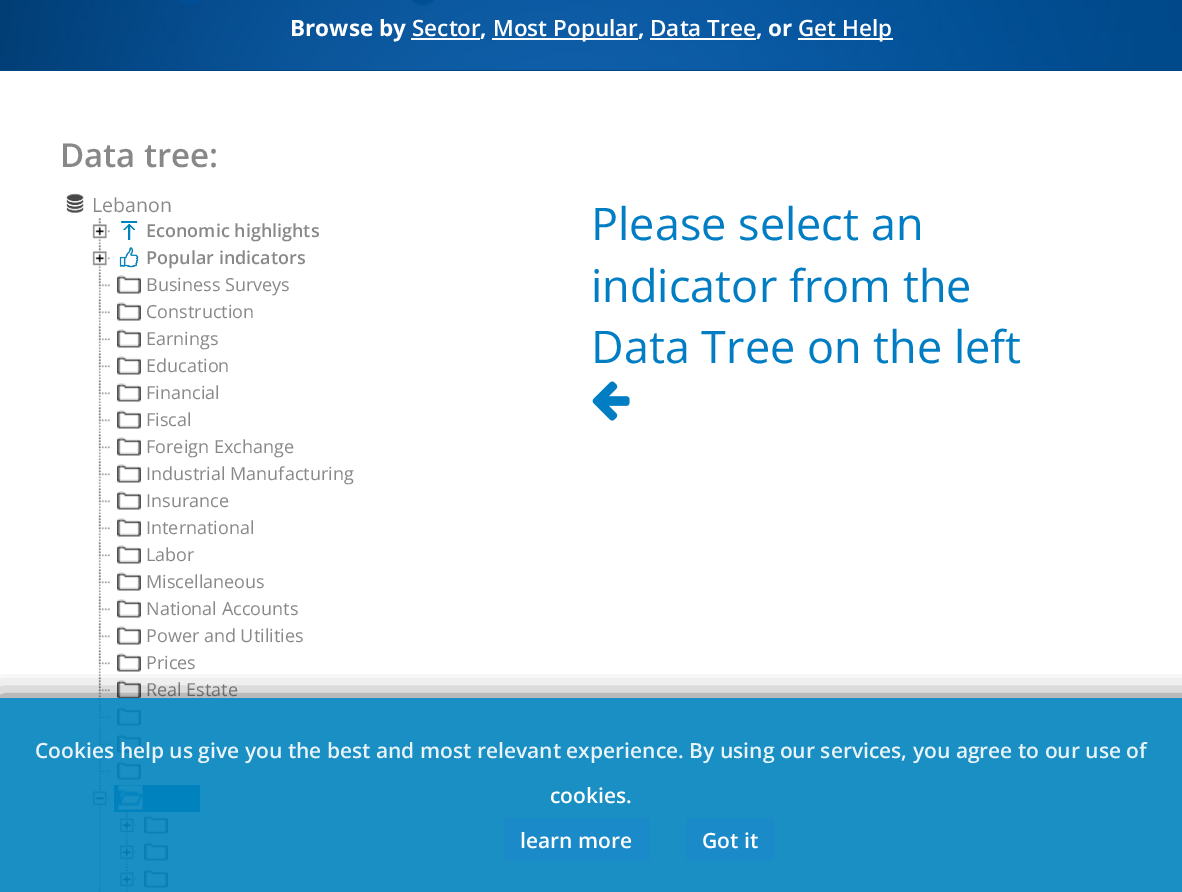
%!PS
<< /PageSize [1182 892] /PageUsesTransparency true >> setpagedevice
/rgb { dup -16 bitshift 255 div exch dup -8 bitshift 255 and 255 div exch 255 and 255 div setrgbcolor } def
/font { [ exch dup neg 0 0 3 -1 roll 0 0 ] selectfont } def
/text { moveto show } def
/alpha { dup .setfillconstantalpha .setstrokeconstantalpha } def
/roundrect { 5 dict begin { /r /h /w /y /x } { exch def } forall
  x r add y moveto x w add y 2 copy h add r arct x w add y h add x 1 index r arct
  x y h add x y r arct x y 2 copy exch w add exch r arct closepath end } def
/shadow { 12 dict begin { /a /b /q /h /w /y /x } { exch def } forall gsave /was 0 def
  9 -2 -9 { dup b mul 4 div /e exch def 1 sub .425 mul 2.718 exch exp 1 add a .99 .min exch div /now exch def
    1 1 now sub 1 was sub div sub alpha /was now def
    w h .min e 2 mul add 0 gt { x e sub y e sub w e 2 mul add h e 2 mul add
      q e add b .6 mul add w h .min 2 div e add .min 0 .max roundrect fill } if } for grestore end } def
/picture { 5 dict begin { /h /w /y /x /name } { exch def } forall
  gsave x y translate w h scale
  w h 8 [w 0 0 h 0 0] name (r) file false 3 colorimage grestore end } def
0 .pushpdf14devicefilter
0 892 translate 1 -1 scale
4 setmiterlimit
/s1 { /OpenSans-Bold 22.5 font 16#FFFFFF rgb } def
/s2 { /OpenSans-SemiBold 22.5 font 16#FFFFFF rgb } def
/s3 { /OpenSans-SemiBold 33 font 16#888888 rgb } def
/s4 { /OpenSans-Regular 19.5 font 16#888888 rgb } def
/s5 { /OpenSans-SemiBold 18 font 16#888888 rgb } def
/s6 { /OpenSans-Regular 18 font 16#888888 rgb } def
/s7 { /OpenSans-Regular 45 font 16#017DC3 rgb } def
/s8 { /OpenSans-SemiBold 21 font 16#E8F4F9 rgb } def
/s9 { /OpenSans-SemiBold 21 font 16#FFFFFF rgb } def
16#FFFFFF rgb
0 0 1182 892 rectfill
16#004481 rgb
0 70 1182 1 rectfill
(pic1.raw) 0 0 1182 70 picture
(pic2.raw) 178 0 256 6 picture
s1
(Browse by) 290 36 text
s2
(Sector) 412 36 text
411 38 69 2 rectfill
s1
(,) 480 36 text
492 38 146 2 rectfill
s2
(Most Popular) 493 36 text
s1
(,) 638 36 text
s2
(Data Tree) 650 36 text
650 38 106 2 rectfill
s1
(, or) 756 36 text
798 38 95 2 rectfill
s2
(Get Help) 798 36 text
s3
(Data tree:) 60 167 text
(pic3.raw) 66 193 18 20 picture
s4
(Lebanon) 92 212 text
(pic4.raw) 98 218 3 26 picture
(pic5.raw) 92 218 18 21 picture
(pic6.raw) 121 221 17 19 picture
s5
(Economic highlights) 146 237 text
(pic4.raw) 98 245 3 26 picture
(pic5.raw) 92 245 18 21 picture
(pic7.raw) 119 247 20 21 picture
(Popular indicators) 146 264 text
(pic4.raw) 98 272 3 26 picture
(pic8.raw) 98 272 12 15 picture
(pic9.raw) 117 275 24 19 picture
s6
(Business Surveys) 146 291 text
(pic4.raw) 98 299 3 26 picture
(pic8.raw) 98 299 12 15 picture
(pic9.raw) 117 302 24 19 picture
(Construction) 146 318 text
(pic4.raw) 98 326 3 26 picture
(pic8.raw) 98 326 12 15 picture
(pic9.raw) 117 329 24 19 picture
(Earnings) 146 345 text
(pic4.raw) 98 353 3 26 picture
(pic8.raw) 98 353 12 15 picture
(pic9.raw) 117 356 24 19 picture
(Education) 146 372 text
(pic4.raw) 98 380 3 26 picture
(pic8.raw) 98 380 12 15 picture
(pic9.raw) 117 383 24 19 picture
(Financial) 146 399 text
(pic4.raw) 98 407 3 26 picture
(pic8.raw) 98 407 12 15 picture
(pic9.raw) 117 410 24 19 picture
(Fiscal) 146 426 text
(pic4.raw) 98 434 3 26 picture
(pic8.raw) 98 434 12 15 picture
(pic9.raw) 117 437 24 19 picture
(Foreign Exchange) 146 453 text
(pic4.raw) 98 461 3 26 picture
(pic8.raw) 98 461 12 15 picture
(pic9.raw) 117 464 24 19 picture
(Industrial Manufacturing) 146 480 text
(pic4.raw) 98 488 3 26 picture
(pic8.raw) 98 488 12 15 picture
(pic9.raw) 117 491 24 19 picture
(Insurance) 146 507 text
(pic4.raw) 98 515 3 26 picture
(pic8.raw) 98 515 12 15 picture
(pic9.raw) 117 518 24 19 picture
(International) 146 534 text
(pic4.raw) 98 542 3 26 picture
(pic8.raw) 98 542 12 15 picture
(pic9.raw) 117 545 24 19 picture
(Labor) 146 561 text
(pic4.raw) 98 569 3 26 picture
(pic8.raw) 98 569 12 15 picture
(pic9.raw) 117 572 24 19 picture
(Miscellaneous) 146 588 text
(pic4.raw) 98 596 3 26 picture
(pic8.raw) 98 596 12 15 picture
(pic9.raw) 117 599 24 19 picture
(National Accounts) 146 615 text
(pic4.raw) 98 623 3 26 picture
(pic8.raw) 98 623 12 15 picture
(pic9.raw) 117 626 24 19 picture
(Power and Utilities) 146 642 text
(pic4.raw) 98 650 3 26 picture
(pic8.raw) 98 650 12 15 picture
(pic9.raw) 117 653 24 19 picture
(Prices) 146 669 text
(pic4.raw) 98 677 3 26 picture
(pic8.raw) 98 677 12 15 picture
(pic9.raw) 117 680 24 19 picture
(Real Estate) 146 696 text
(pic4.raw) 98 704 3 26 picture
(pic8.raw) 98 704 12 15 picture
(pic9.raw) 117 707 24 19 picture
(pic4.raw) 98 731 3 26 picture
(pic8.raw) 98 731 12 15 picture
(pic9.raw) 117 734 24 19 picture
(pic4.raw) 98 758 3 26 picture
(pic8.raw) 98 758 12 15 picture
(pic9.raw) 117 761 24 19 picture
(pic10.raw) 98 784 3 108 picture
(pic11.raw) 92 785 18 21 picture
16#017DC3 rgb
114 785 86 27 rectfill
(pic12.raw) 118 785 25 25 picture
(pic4.raw) 125 812 3 26 picture
(pic5.raw) 119 812 18 21 picture
(pic9.raw) 144 815 24 19 picture
(pic4.raw) 125 839 3 26 picture
(pic5.raw) 119 839 18 21 picture
(pic9.raw) 144 842 24 19 picture
(pic4.raw) 125 866 3 26 picture
(pic5.raw) 119 866 18 21 picture
(pic9.raw) 144 869 24 19 picture
s7
(Please select an) 591 240 text
(indicator from the) 591 302 text
(Data Tree on the left) 591 363 text
(pic13.raw) 592 381 38 40 picture
gsave
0 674 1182 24 rectclip
16#000000 rgb
0 704 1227 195 0 15 0.9 shadow
grestore
0.9 alpha
16#0083BD rgb
0 698 1182 194 rectfill
1 alpha
s8
(Cookies help us give you the best and most relevant experience. By using our services, you agree to our use of) 35 758 text
s9
(cookies.) 550 803 text
16#1A8AC9 rgb
504 818 146 43 rectfill
s9
(learn more) 520 848 text
16#1A8AC9 rgb
686 818 88 43 rectfill
s9
(Got it) 702 848 text
.poppdf14devicefilter showpage
